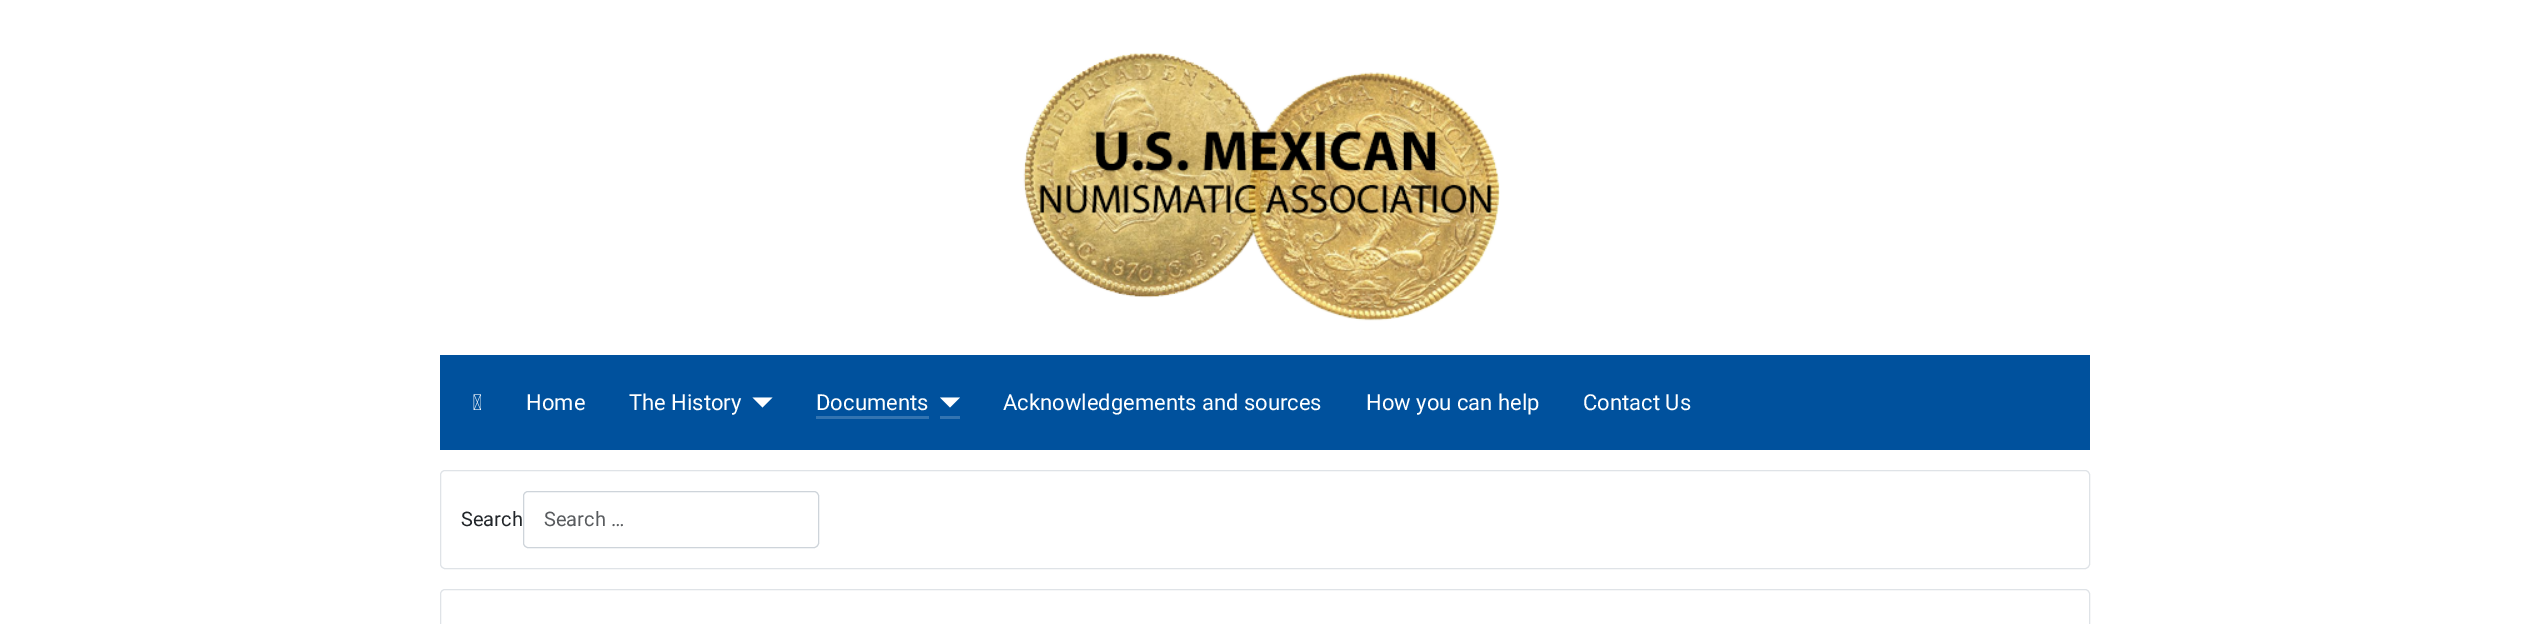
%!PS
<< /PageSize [2530 624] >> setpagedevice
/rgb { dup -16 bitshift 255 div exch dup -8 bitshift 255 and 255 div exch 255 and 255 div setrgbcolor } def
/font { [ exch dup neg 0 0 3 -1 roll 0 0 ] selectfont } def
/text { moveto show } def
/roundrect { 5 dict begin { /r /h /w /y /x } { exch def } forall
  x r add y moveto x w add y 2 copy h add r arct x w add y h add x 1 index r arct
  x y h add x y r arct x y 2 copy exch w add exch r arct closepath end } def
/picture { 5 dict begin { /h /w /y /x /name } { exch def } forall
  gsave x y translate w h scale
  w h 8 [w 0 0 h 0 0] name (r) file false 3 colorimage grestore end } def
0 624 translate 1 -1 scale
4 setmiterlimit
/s1 { /Roboto-Regular 22 font 16#FFFFFF rgb } def
/s2 { /Roboto-Regular 20 font 16#22262A rgb } def
/s3 { /Roboto-Regular 20 font 16#595C5F rgb } def
16#FFFFFF rgb
0 0 2530 624 rectfill
(pic1.raw) 1023 52 477 269 picture
16#00519D rgb
440 355 1650 95 rectfill
(pic2.raw) 473 394 8 16 picture
s1
(Home) 526 410 text
(The History) 629 410 text
752.5 397.5 moveto 772.5 397.5 lineto 762.5 407.5 lineto closepath fill
(Documents) 816 410 text
16#3374B1 rgb
816 416 113 3 rectfill
16#FFFFFF rgb
940 397.5 moveto 960 397.5 lineto 950 407.5 lineto closepath fill
16#3374B1 rgb
940 416 20 3 rectfill
s1
(Acknowledgements and sources) 1003 410 text
(How you can help) 1366 410 text
(Contact Us) 1583 410 text
16#DFE3E7 rgb
440.5 470.5 1649 98 4.5 roundrect stroke
s2
(Search) 461 526 text
16#CED4DA rgb
523.5 491.5 295 56 4.5 roundrect stroke
s3
(Search …) 544 526 text
16#DFE3E7 rgb
440.5 589.5 1649 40 4.5 roundrect stroke
showpage
